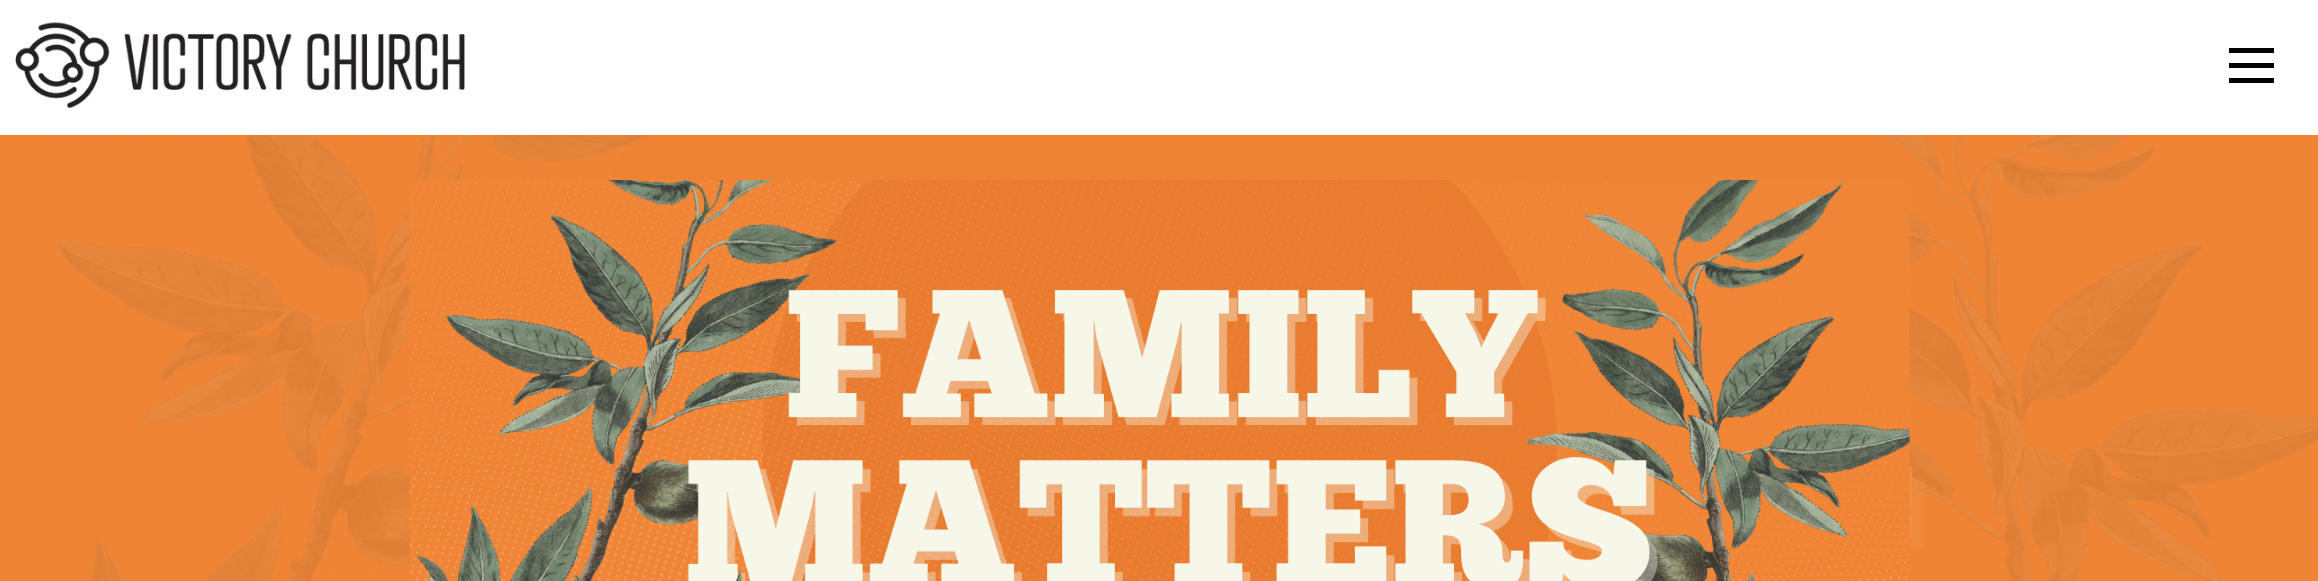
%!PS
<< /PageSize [2318 581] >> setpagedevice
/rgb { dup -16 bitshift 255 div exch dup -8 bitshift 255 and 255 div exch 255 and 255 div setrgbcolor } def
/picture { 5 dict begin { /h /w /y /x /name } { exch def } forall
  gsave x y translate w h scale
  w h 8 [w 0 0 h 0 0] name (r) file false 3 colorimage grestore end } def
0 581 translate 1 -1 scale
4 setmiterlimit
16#FFFFFF rgb
0 0 2318 581 rectfill
(pic1.raw) 15 22 450 86 picture
16#000000 rgb
2229 48 45 5 rectfill
2229 63 45 5 rectfill
2229 78 45 5 rectfill
(pic2.raw) 0 135 2318 446 picture
(pic3.raw) 409 180 1501 401 picture
showpage
